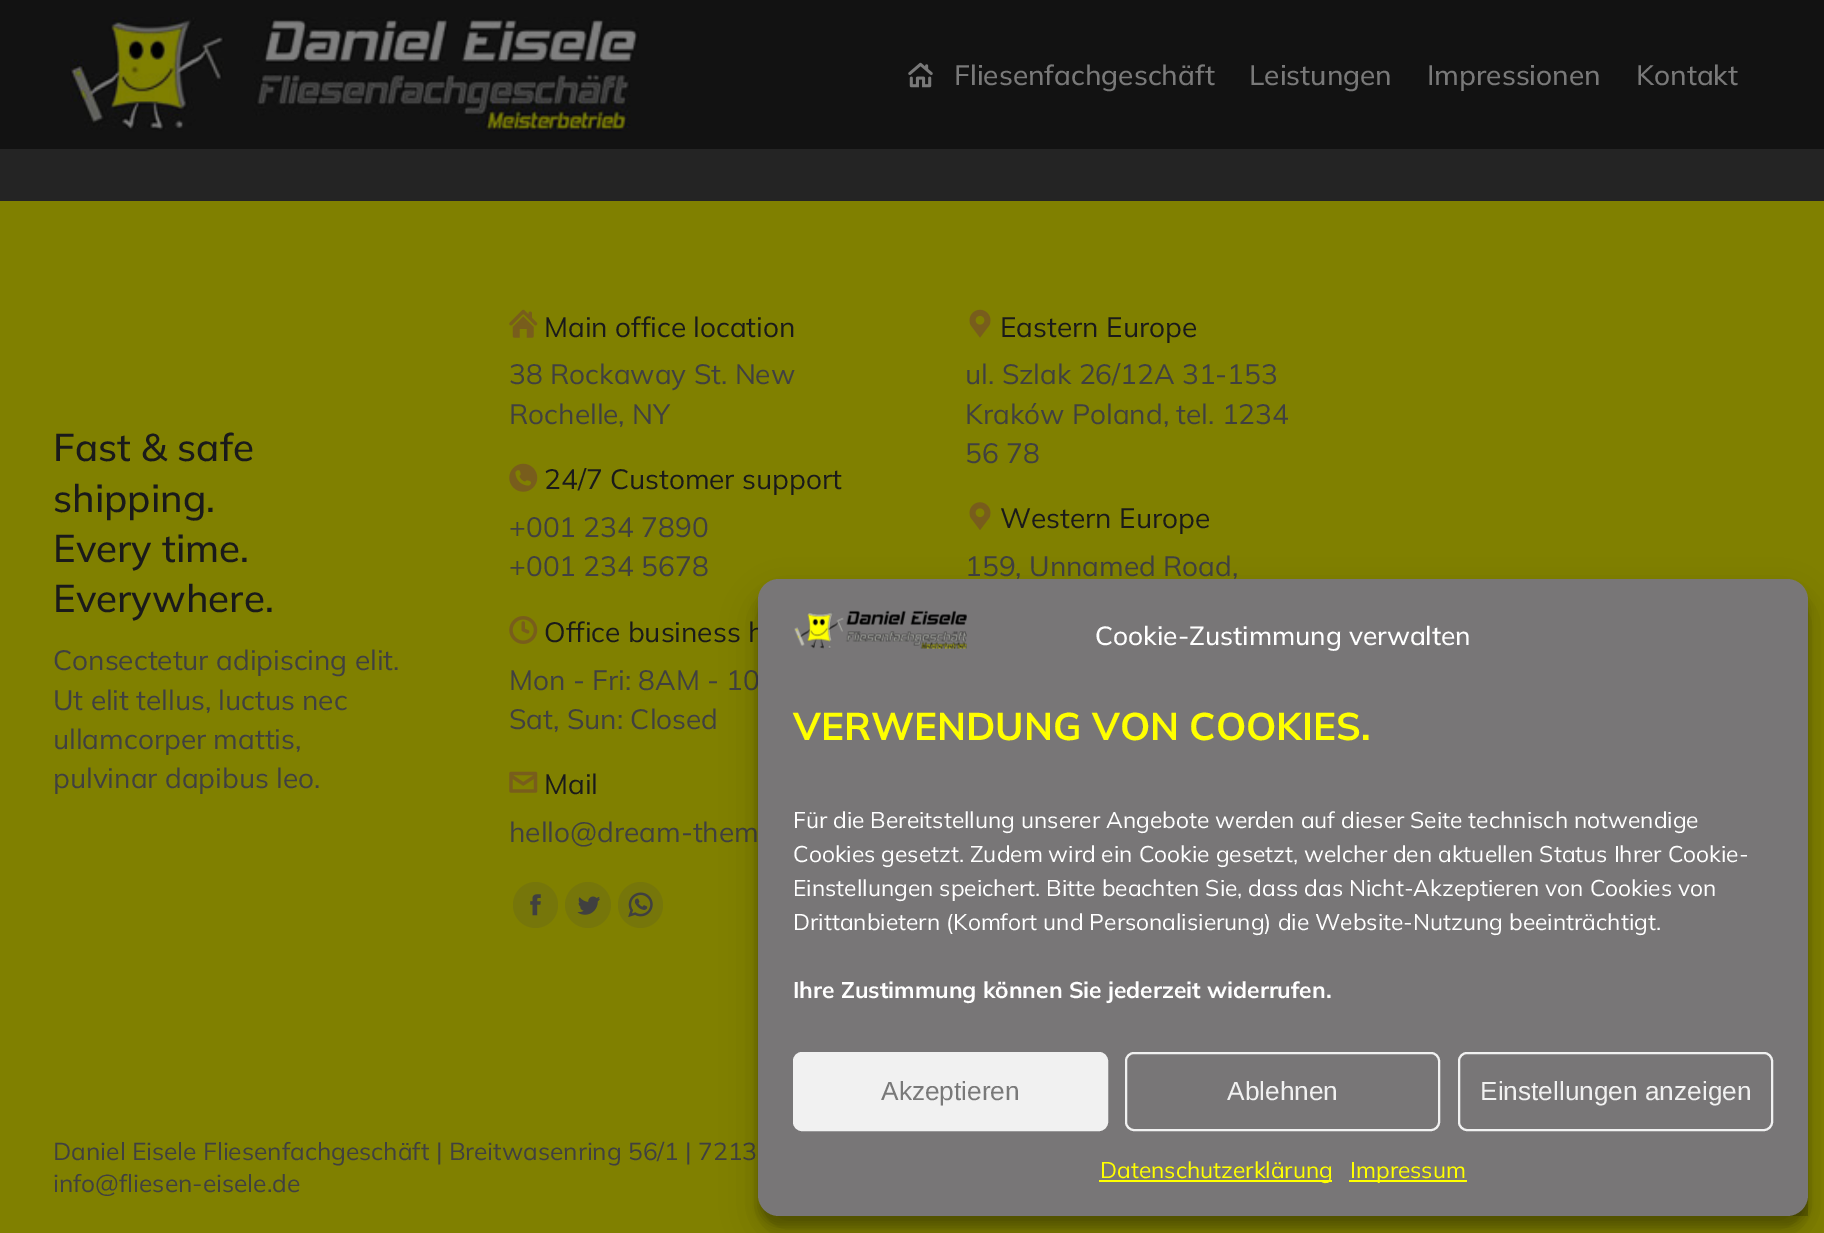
%!PS
<< /PageSize [1824 1233] /PageUsesTransparency true >> setpagedevice
/rgb { dup -16 bitshift 255 div exch dup -8 bitshift 255 and 255 div exch 255 and 255 div setrgbcolor } def
/font { [ exch dup neg 0 0 3 -1 roll 0 0 ] selectfont } def
/text { moveto show } def
/alpha { dup .setfillconstantalpha .setstrokeconstantalpha } def
/circle { newpath 0 360 arc closepath } def
/roundrect { 5 dict begin { /r /h /w /y /x } { exch def } forall
  x r add y moveto x w add y 2 copy h add r arct x w add y h add x 1 index r arct
  x y h add x y r arct x y 2 copy exch w add exch r arct closepath end } def
/shadow { 12 dict begin { /a /b /q /h /w /y /x } { exch def } forall gsave /was 0 def
  9 -2 -9 { dup b mul 4 div /e exch def 1 sub .425 mul 2.718 exch exp 1 add a .99 .min exch div /now exch def
    1 1 now sub 1 was sub div sub alpha /was now def
    w h .min e 2 mul add 0 gt { x e sub y e sub w e 2 mul add h e 2 mul add
      q e add b .6 mul add w h .min 2 div e add .min 0 .max roundrect fill } if } for grestore end } def
/picture { 5 dict begin { /h /w /y /x /name } { exch def } forall
  gsave x y translate w h scale
  w h 8 [w 0 0 h 0 0] name (r) file false 3 colorimage grestore end } def
0 .pushpdf14devicefilter
0 1233 translate 1 -1 scale
4 setmiterlimit
/s1 { /Mulish-Medium 28 font 16#797979 rgb } def
/s2 { /Mulish-Medium 38.5 font 16#1A1A1A rgb } def
/s3 { /Mulish-Regular 28 font 16#404040 rgb } def
/s4 { /Mulish-Regular 28 font 16#1A1A1A rgb } def
/s5 { /Mulish-Regular 24.5 font 16#404040 rgb } def
/s6 { /Mulish-Medium 26.25 font 16#FFFFFF rgb } def
/s7 { /Mulish-Bold 38.5 font 16#FFFF00 rgb } def
/s8 { /Mulish-Regular 22.75 font 16#FFFFFF rgb } def
/s9 { /Mulish-Bold 22.75 font 16#FFFFFF rgb } def
/s10 { /LiberationSans-Regular 26.25 font 16#797979 rgb } def
/s11 { /LiberationSans-Regular 26.25 font 16#F1F1F1 rgb } def
/s12 { /Mulish-Regular 22.75 font 16#FFFF00 rgb } def
16#242424 rgb
0 0 1824 1233 rectfill
16#121212 rgb
0 0 1824 149 rectfill
(pic1.raw) 70 17 569 115 picture
(pic2.raw) 908 62 25 26 picture
s1
(Fliesenfachgeschäft) 954 85 text
(Leistungen) 1249 85 text
(Impressionen) 1427 85 text
(Kontakt) 1636 85 text
16#808000 rgb
0 201 1824 1032 rectfill
s2
(Fast & safe) 53 461 text
(shipping.) 53 512 text
(Every time.) 53 562 text
(Everywhere.) 53 612 text
s3
(Consectetur adipiscing elit.) 53 670 text
(Ut elit tellus, luctus nec) 53 710 text
(ullamcorper mattis,) 53 749 text
(pulvinar dapibus leo.) 53 788 text
(pic3.raw) 509 309 29 29 picture
s4
(Main office location) 544 337 text
s3
(38 Rockaway St. New) 509 384 text
(Rochelle, NY) 509 424 text
(pic4.raw) 509 463 29 29 picture
s4
(24/7 Customer support) 544 489 text
s3
(+001 234 7890) 509 537 text
(+001 234 5678) 509 576 text
(pic5.raw) 509 616 29 28 picture
s4
(Office business h) 544 642 text
s3
(Mon - Fri: 8AM - 10) 509 690 text
(Sat, Sun: Closed) 509 729 text
(pic6.raw) 509 771 29 22 picture
s4
(Mail) 544 794 text
s3
(hello@dream-them) 509 842 text
16#76760A rgb
513 882 45 46 22.5 roundrect fill
(pic7.raw) 530 894 11 22 picture
588 905 23 circle fill
(pic8.raw) 577 896 23 19 picture
618 882 45 46 22.5 roundrect fill
(pic9.raw) 628 892 25 25 picture
(pic10.raw) 969 309 22 29 picture
s4
(Eastern Europe) 1000 337 text
s3
(ul. Szlak 26/12A 31-153) 965 384 text
(Kraków Poland, tel. 1234) 965 424 text
(56 78) 965 463 text
(pic11.raw) 969 502 22 28 picture
s4
(Western Europe) 1000 528 text
s3
(159, Unnamed Road,) 965 576 text
s5
(Daniel Eisele Fliesenfachgeschäft | Breitwasenring 56/1 | 7213) 53 1160 text
(info@fliesen-eisele.de) 53 1192 text
16#666600 rgb
1787 1195 21 21 rectfill
16#000000 rgb
758 590 1050 637 21 5 0.23 shadow
758 597 1050 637 21 17.5 0.19 shadow
16#787677 rgb
758 579 1050 637 21 roundrect fill
(pic12.raw) 794 610 173 39 picture
s6
(Cookie-Zustimmung verwalten) 1095 645 text
s7
(VERWENDUNG VON COOKIES.) 793 740 text
s8
(Für die Bereitstellung unserer Angebote werden auf dieser Seite technisch notwendige) 793 828 text
(Cookies gesetzt. Zudem wird ein Cookie gesetzt, welcher den aktuellen Status Ihrer Cookie-) 793 862 text
(Einstellungen speichert. Bitte beachten Sie, dass das Nicht-Akzeptieren von Cookies von) 793 896 text
(Drittanbietern \(Komfort und Personalisierung\) die Website-Nutzung beeinträchtigt.) 793 930 text
s9
(Ihre Zustimmung können Sie jederzeit widerrufen.) 793 998 text
16#F1F1F1 rgb
794 1053 313 77 8 roundrect gsave fill grestore
2 setlinewidth
stroke
s10
(Akzeptieren) 881 1100 text
16#F1F1F1 rgb
1126 1053 313 77 8 roundrect stroke
(Ablehnen) 1227 1100 text
1459 1053 313 77 8 roundrect stroke
(Einstellungen anzeigen) 1480 1100 text
16#FFFF00 rgb
1099 1180 233 2 rectfill
s12
(Datenschutzerklärung) 1100 1178 text
1349 1180 118 2 rectfill
(Impressum) 1350 1178 text
.poppdf14devicefilter showpage
